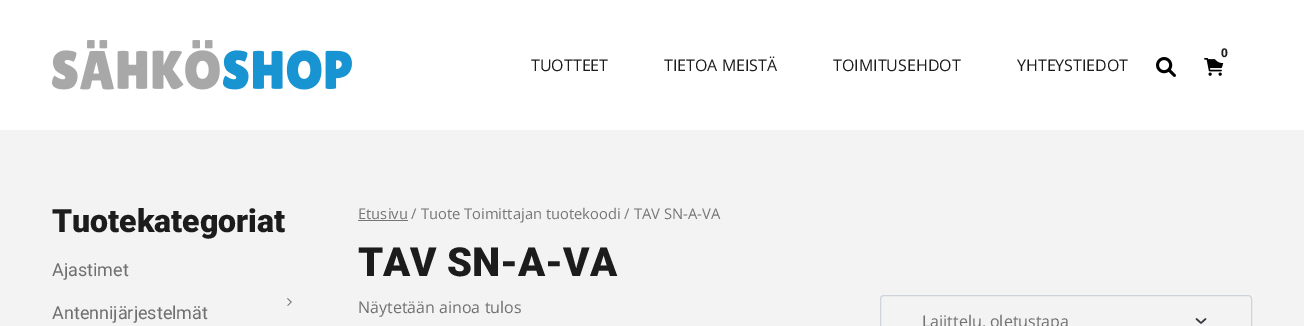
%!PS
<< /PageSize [1304 326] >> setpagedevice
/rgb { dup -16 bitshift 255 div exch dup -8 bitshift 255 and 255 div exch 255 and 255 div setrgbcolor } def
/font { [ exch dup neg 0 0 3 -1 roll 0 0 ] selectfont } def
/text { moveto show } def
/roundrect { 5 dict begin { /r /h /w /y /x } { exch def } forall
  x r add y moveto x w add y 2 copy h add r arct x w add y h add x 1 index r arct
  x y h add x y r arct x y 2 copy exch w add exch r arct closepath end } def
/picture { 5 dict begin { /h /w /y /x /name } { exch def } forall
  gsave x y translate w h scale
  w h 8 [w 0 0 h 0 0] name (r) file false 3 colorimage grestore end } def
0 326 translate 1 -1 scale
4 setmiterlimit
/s1 { /OpenSans-Bold 12 font 16#1C1C1C rgb } def
/s2 { /OpenSans-Regular 16 font 16#1C1C1C rgb } def
/s3 { /Roboto-Black 32 font 16#1C1C1C rgb } def
/s4 { /Roboto-Regular 18 font 16#707070 rgb } def
/s5 { /OpenSans-Regular 14.75 font 16#767676 rgb } def
/s6 { /Roboto-Black 40 font 16#1C1C1C rgb } def
/s7 { /OpenSans-Regular 16 font 16#707070 rgb } def
16#F3F3F3 rgb
0 0 1304 326 rectfill
16#FFFFFF rgb
0 0 1304 130 rectfill
(pic1.raw) 52 40 300 50 picture
(pic2.raw) 1204 58 20 18 picture
1213 43 22 20 10 roundrect fill
s1
(0) 1221 57 text
s2
(TUOTTEET) 531 71 text
(TIETOA MEISTÄ) 664 71 text
(TOIMITUSEHDOT) 833 71 text
(YHTEYSTIEDOT) 1017 71 text
(pic3.raw) 1156 57 20 20 picture
s3
(Tuotekategoriat) 52 232 text
s4
(Ajastimet) 52 276 text
(pic4.raw) 287 298 5 8 picture
(Antennijärjestelmät) 52 319 text
16#767676 rgb
358 220 50 1 rectfill
s5
(Etusivu / Tuote Toimittajan tuotekoodi / TAV SN-A-VA) 358 219 text
s6
(TAV SN-A-VA) 358 276 text
s7
(Näytetään ainoa tulos) 358 313 text
16#343A40 rgb
1.5 setlinewidth
1 setlinecap
1 setlinejoin
1196.5 319 moveto 1201 323 lineto 1205.5 319 lineto stroke
16#CED4DA rgb
1 setlinewidth
0 setlinecap
0 setlinejoin
880.5 295.5 371 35 3.5 roundrect stroke
s7
(Lajittelu, oletustapa) 922 327 text
showpage
